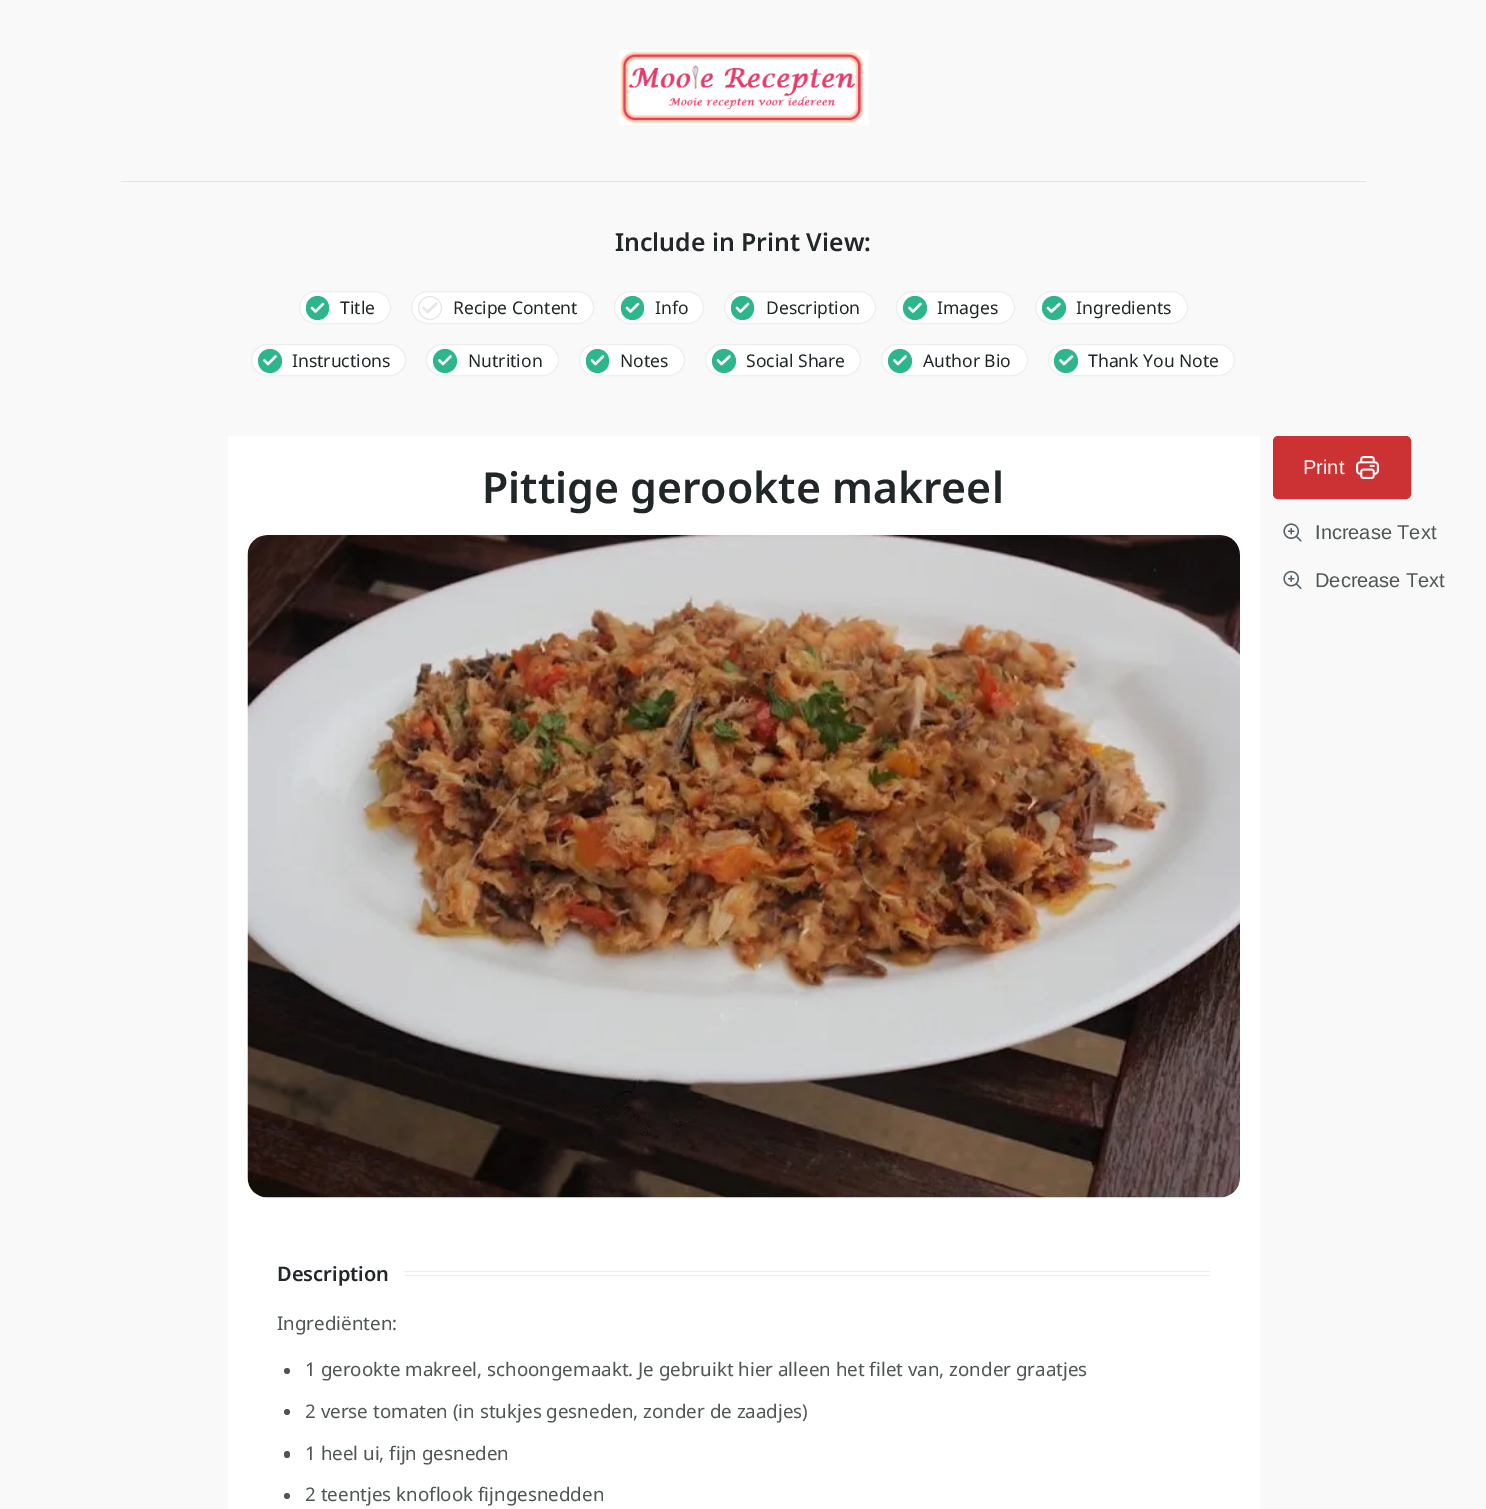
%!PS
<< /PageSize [1486 1509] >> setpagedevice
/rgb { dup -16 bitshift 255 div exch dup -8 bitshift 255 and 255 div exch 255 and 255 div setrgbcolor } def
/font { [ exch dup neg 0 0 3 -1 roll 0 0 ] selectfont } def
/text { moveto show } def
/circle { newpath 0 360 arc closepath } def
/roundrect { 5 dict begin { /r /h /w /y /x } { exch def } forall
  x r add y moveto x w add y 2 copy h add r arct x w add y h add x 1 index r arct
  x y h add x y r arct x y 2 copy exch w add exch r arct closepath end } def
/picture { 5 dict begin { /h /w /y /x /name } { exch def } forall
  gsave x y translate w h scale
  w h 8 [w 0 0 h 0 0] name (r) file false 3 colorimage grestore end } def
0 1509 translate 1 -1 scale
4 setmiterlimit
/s1 { /NotoSans-SemiBold 24.8 font 16#212728 rgb } def
/s2 { /NotoSans-Regular 17.5 font 16#212728 rgb } def
/s3 { /NotoSans-SemiBold 42.75 font 16#212728 rgb } def
/s4 { /NotoSans-SemiBold 20 font 16#212728 rgb } def
/s5 { /NotoSans-Regular 18.75 font 16#505556 rgb } def
/s6 { /LiberationSans-Regular 20 font 16#FFFFFF rgb } def
/s7 { /LiberationSans-Regular 20 font 16#505556 rgb } def
16#F9F9F9 rgb
0 0 1486 1509 rectfill
16#E3E4E4 rgb
121 181 1245 1 rectfill
(pic1.raw) 619 50 250 75 picture
s1
(Include in Print View:) 615 251 text
16#FFFFFF rgb
299.5 291.5 91 32 16 roundrect gsave fill grestore
16#EDEEEE rgb
stroke
16#2DB68D rgb
306 296 23 24 11.5 roundrect fill
16#FFFFFF rgb
2.4 setlinewidth
1 setlinecap
1 setlinejoin
323 304 moveto 315.5 311.5 lineto 312 308 lineto stroke
s2
(Title) 340 314 text
16#FFFFFF rgb
411.5 291.5 182 32 16 roundrect gsave fill grestore
16#EDEEEE rgb
1 setlinewidth
0 setlinecap
0 setlinejoin
stroke
16#E6E6E6 rgb
430 308 11.5 circle stroke
2.4 setlinewidth
1 setlinecap
1 setlinejoin
436.5 303.5 moveto 427.5 312 lineto 423.5 308 lineto stroke
s2
(Recipe Content) 453 314 text
16#FFFFFF rgb
614.5 291.5 89 32 16 roundrect gsave fill grestore
16#EDEEEE rgb
1 setlinewidth
0 setlinecap
0 setlinejoin
stroke
16#2DB68D rgb
621 296 23 24 11.5 roundrect fill
16#FFFFFF rgb
2.4 setlinewidth
1 setlinecap
1 setlinejoin
638 304 moveto 630.5 311.5 lineto 627 308 lineto stroke
s2
(Info) 655 314 text
16#FFFFFF rgb
724.5 291.5 151 32 16 roundrect gsave fill grestore
16#EDEEEE rgb
1 setlinewidth
0 setlinecap
0 setlinejoin
stroke
16#2DB68D rgb
731 296 23 24 11.5 roundrect fill
16#FFFFFF rgb
2.4 setlinewidth
1 setlinecap
1 setlinejoin
748 304 moveto 740.5 311.5 lineto 737 308 lineto stroke
s2
(Description) 766 314 text
16#FFFFFF rgb
896.5 291.5 118 32 16 roundrect gsave fill grestore
16#EDEEEE rgb
1 setlinewidth
0 setlinecap
0 setlinejoin
stroke
16#2DB68D rgb
915 308 12 circle fill
16#FFFFFF rgb
2.4 setlinewidth
1 setlinecap
1 setlinejoin
920.5 304 moveto 913 311.5 lineto 909.5 308 lineto stroke
s2
(Images) 937 314 text
16#FFFFFF rgb
1035.5 291.5 152 32 16 roundrect gsave fill grestore
16#EDEEEE rgb
1 setlinewidth
0 setlinecap
0 setlinejoin
stroke
16#2DB68D rgb
1054 308 12 circle fill
16#FFFFFF rgb
2.4 setlinewidth
1 setlinecap
1 setlinejoin
1059.5 304 moveto 1051.5 311.5 lineto 1048 308 lineto stroke
s2
(Ingredients) 1076 314 text
16#FFFFFF rgb
251.5 344.5 154 31 15.5 roundrect gsave fill grestore
16#EDEEEE rgb
1 setlinewidth
0 setlinecap
0 setlinejoin
stroke
16#2DB68D rgb
270 361 12 circle fill
16#FFFFFF rgb
2.4 setlinewidth
1 setlinecap
1 setlinejoin
275.5 356.5 moveto 268 364 lineto 264.5 360.5 lineto stroke
s2
(Instructions) 292 367 text
16#FFFFFF rgb
426.5 344.5 132 31 15.5 roundrect gsave fill grestore
16#EDEEEE rgb
1 setlinewidth
0 setlinecap
0 setlinejoin
stroke
16#2DB68D rgb
445 361 12 circle fill
16#FFFFFF rgb
2.4 setlinewidth
1 setlinecap
1 setlinejoin
450.5 356.5 moveto 443 364 lineto 439.5 360.5 lineto stroke
s2
(Nutrition) 468 367 text
16#FFFFFF rgb
579.5 344.5 105 31 15.5 roundrect gsave fill grestore
16#EDEEEE rgb
1 setlinewidth
0 setlinecap
0 setlinejoin
stroke
16#2DB68D rgb
586 349 23 24 11.5 roundrect fill
16#FFFFFF rgb
2.4 setlinewidth
1 setlinecap
1 setlinejoin
603 356.5 moveto 595.5 364 lineto 592 360.5 lineto stroke
s2
(Notes) 620 367 text
16#FFFFFF rgb
705.5 344.5 155 31 15.5 roundrect gsave fill grestore
16#EDEEEE rgb
1 setlinewidth
0 setlinecap
0 setlinejoin
stroke
16#2DB68D rgb
724 361 12 circle fill
16#FFFFFF rgb
2.4 setlinewidth
1 setlinecap
1 setlinejoin
729.5 356.5 moveto 721.5 364 lineto 718 360.5 lineto stroke
s2
(Social Share) 746 367 text
16#FFFFFF rgb
881.5 344.5 146 31 15.5 roundrect gsave fill grestore
16#EDEEEE rgb
1 setlinewidth
0 setlinecap
0 setlinejoin
stroke
16#2DB68D rgb
900 361 12 circle fill
16#FFFFFF rgb
2.4 setlinewidth
1 setlinecap
1 setlinejoin
905.5 356.5 moveto 898 364 lineto 894.5 360.5 lineto stroke
s2
(Author Bio) 923 367 text
16#FFFFFF rgb
1048.5 344.5 186 31 15.5 roundrect gsave fill grestore
16#EDEEEE rgb
1 setlinewidth
0 setlinecap
0 setlinejoin
stroke
16#2DB68D rgb
1066 361 12 circle fill
16#FFFFFF rgb
2.4 setlinewidth
1 setlinecap
1 setlinejoin
1072 356.5 moveto 1064 364 lineto 1060.5 360.5 lineto stroke
s2
(Thank You Note) 1088 367 text
16#FFFFFF rgb
228 436 1032 1073 rectfill
s3
(Pittige gerookte makreel) 482 503 text
(pic2.raw) 247 535 993 663 picture
s4
(Description) 277 1281 text
16#EBEDEE rgb
404 1271 806 1 rectfill
404 1275 806 1 rectfill
s5
(Ingrediënten:) 277 1330 text
287 1371 3 circle fill
(1 gerookte makreel, schoongemaakt. Je gebruikt hier alleen het filet van, zonder graatjes) 305 1376 text
287 1412 3 circle fill
(2 verse tomaten \(in stukjes gesneden, zonder de zaadjes\)) 305 1418 text
284 1451 6 7 3 roundrect fill
(1 heel ui, fijn gesneden) 305 1460 text
287 1496 3 circle fill
(2 teentjes knoflook fijngesnedden) 305 1501 text
16#CC3233 rgb
1273.5 436.5 137 62 4.5 roundrect gsave fill grestore
1 setlinewidth
0 setlinecap
0 setlinejoin
stroke
s6
(Print) 1303 474 text
(pic3.raw) 1356 456 23 23 picture
(pic4.raw) 1283 523 19 19 picture
s7
(Increase Text) 1315 539 text
(pic5.raw) 1283 570 19 20 picture
(Decrease Text) 1315 587 text
showpage
